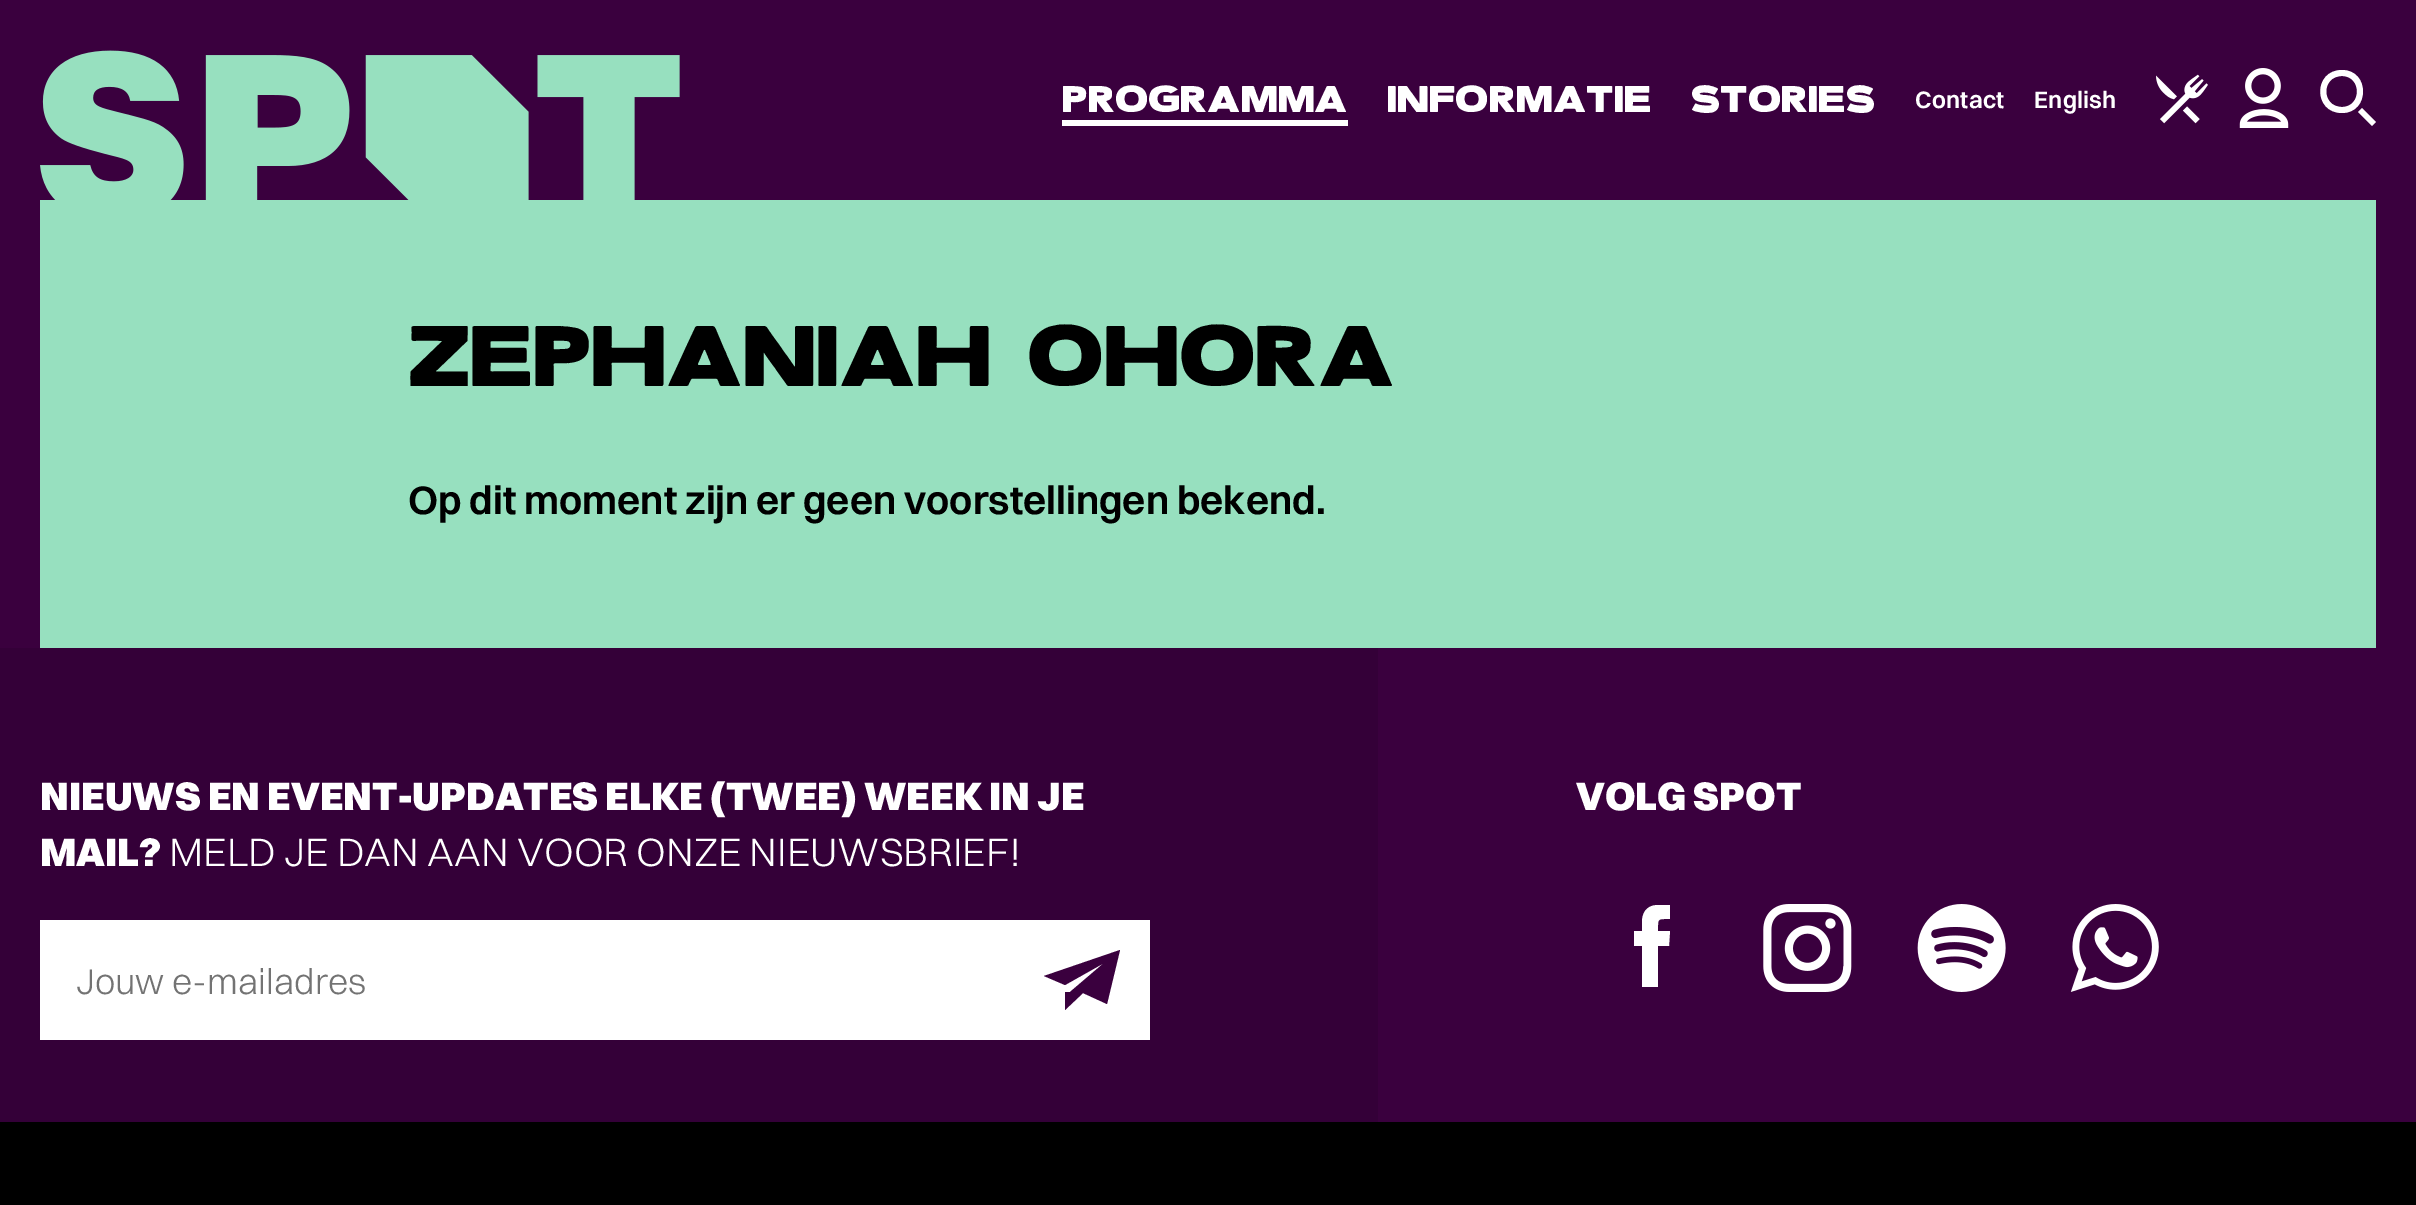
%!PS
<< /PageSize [2416 1205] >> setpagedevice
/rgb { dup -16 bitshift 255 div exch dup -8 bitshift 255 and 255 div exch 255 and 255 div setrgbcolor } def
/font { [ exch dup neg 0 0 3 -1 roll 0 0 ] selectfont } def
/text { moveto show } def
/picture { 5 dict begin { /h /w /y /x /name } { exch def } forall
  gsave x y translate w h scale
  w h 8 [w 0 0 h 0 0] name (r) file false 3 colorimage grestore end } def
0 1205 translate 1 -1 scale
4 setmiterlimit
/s1 { /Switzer-SemiBold 40 font 16#000000 rgb } def
/s2 { /Switzer-Black 40 font 16#FFFFFF rgb } def
/s3 { /Switzer-Light 40 font 16#FFFFFF rgb } def
/s4 { /Switzer-Light 36 font 16#737373 rgb } def
16#3A003E rgb
0 0 2416 1205 rectfill
(pic1.raw) 40 50 640 150 picture
/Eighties-Regular 52 font
16#FFFFFF rgb
1062 112 moveto 0.25 0 (PROGRAMMA) ashow
1062 120 286 6 rectfill
1387 112 moveto 0.25 0 (INFORMATIE) ashow
1691 112 moveto 0.25 0 (STORIES) ashow
/Switzer-SemiBold 24 font
1915 108 moveto 0.25 0 (Contact) ashow
2034 108 moveto 0.25 0 (English) ashow
(pic2.raw) 2156 74 52 50 picture
(pic3.raw) 2239 68 50 60 picture
2362 108 moveto 2376 122 lineto 2372 126 lineto 2358 112 lineto closepath 2342 70 moveto 2370 70 2370 113 2342 113 curveto 2313 113 2313 70 2342 70 curveto closepath 2342 76 moveto 2321 76 2321 107 2342 107 curveto 2362 107 2362 76 2342 76 curveto closepath eofill
16#97E0BF rgb
40 200 2336 448 rectfill
/Eighties-Regular 120 font
16#000000 rgb
408 386 moveto 0.25 0 (ZEPHANIAH OHORA) ashow
s1
(Op dit moment zijn er geen voorstellingen bekend.) 408 514 text
16#340038 rgb
0 648 1378 474 rectfill
s2
(NIEUWS EN EVENT-UPDATES ELKE \(TWEE\) WEEK IN JE) 40 810 text
(MAIL?) 40 866 text
s3
(MELD JE DAN AAN VOOR ONZE NIEUWSBRIEF!) 169 866 text
40 920 1110 120 rectfill
s4
(Jouw e-mailadres) 76 994 text
16#3A003E rgb
1107 1004 moveto 1083 993 lineto 1065 1010 lineto 1065 992 lineto 1070 992 lineto 1104 963 lineto 1065 985 lineto 1044 976 lineto 1120 950 lineto closepath eofill
s2
(VOLG SPOT) 1576 810 text
1670 931 moveto 1658 931 lineto 1658 918 1657 919 1670 919 curveto 1670 905 lineto 1658 905 lineto 1645 905 1642 915 1642 922 curveto 1642 931 lineto 1634 931 lineto 1634 946 lineto 1642 946 lineto 1642 987 lineto 1658 987 lineto 1658 946 lineto 1669 946 lineto closepath eofill
(pic4.raw) 1763 904 89 88 picture
(pic5.raw) 1917 904 89 88 picture
(pic6.raw) 2070 904 89 88 picture
16#000000 rgb
0 1122 2416 83 rectfill
showpage
